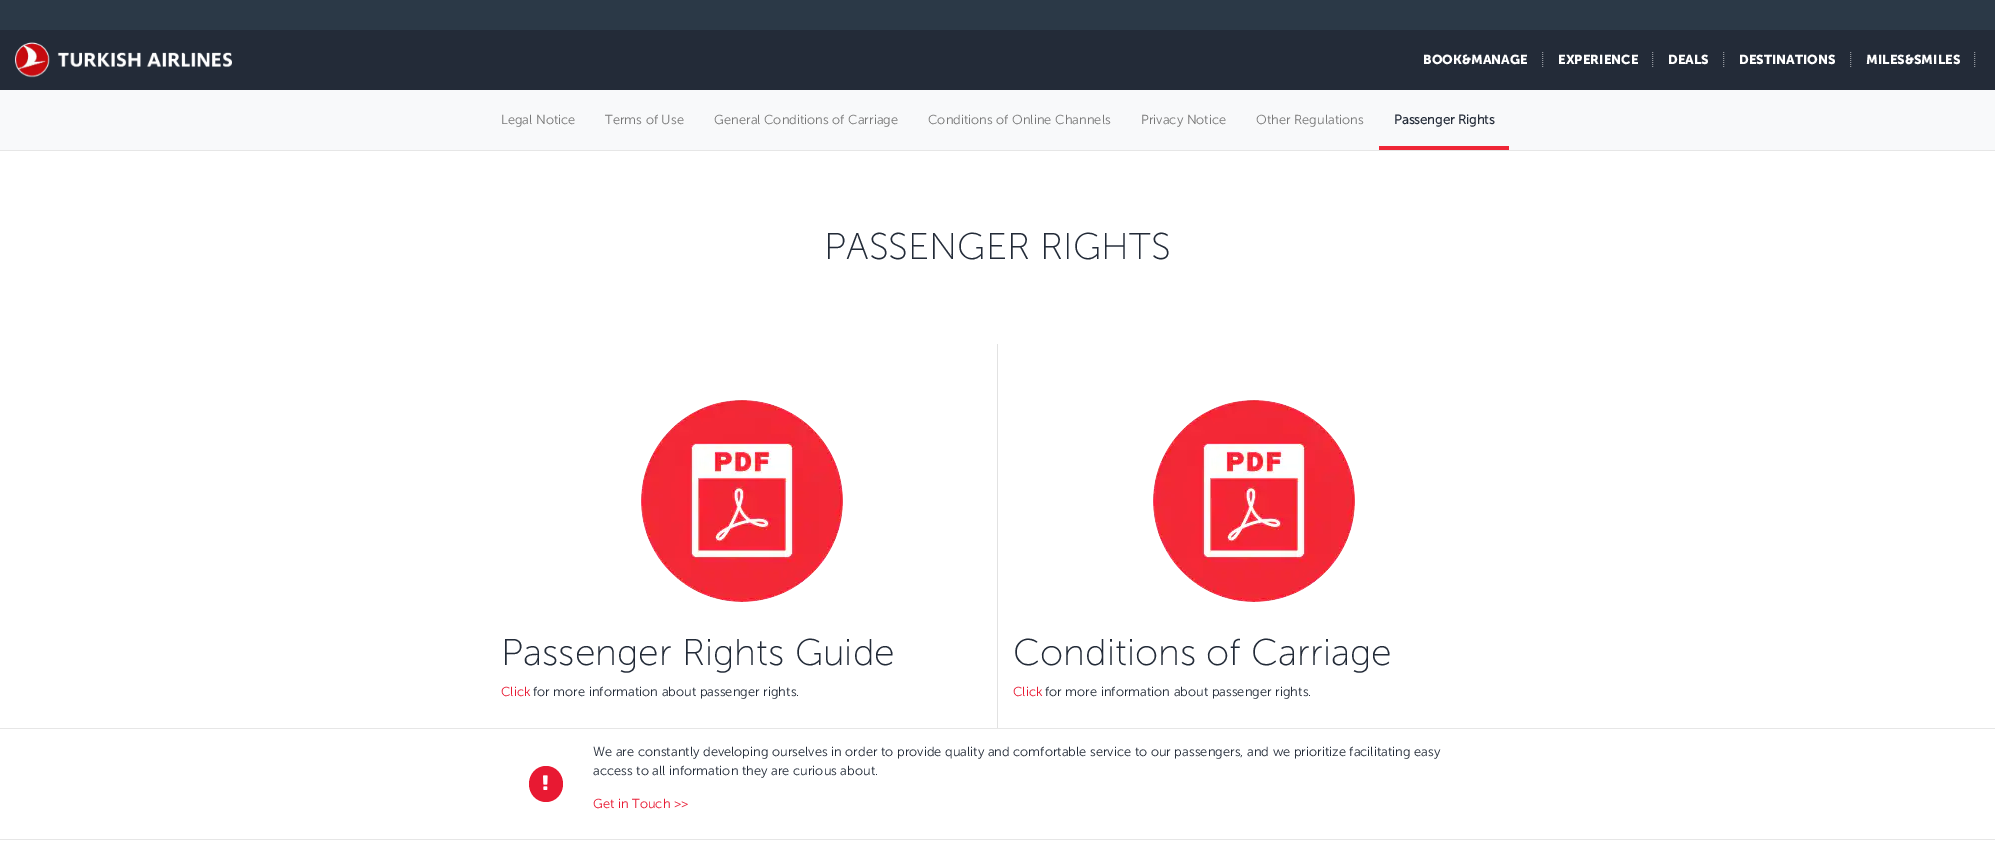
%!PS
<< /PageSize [1995 853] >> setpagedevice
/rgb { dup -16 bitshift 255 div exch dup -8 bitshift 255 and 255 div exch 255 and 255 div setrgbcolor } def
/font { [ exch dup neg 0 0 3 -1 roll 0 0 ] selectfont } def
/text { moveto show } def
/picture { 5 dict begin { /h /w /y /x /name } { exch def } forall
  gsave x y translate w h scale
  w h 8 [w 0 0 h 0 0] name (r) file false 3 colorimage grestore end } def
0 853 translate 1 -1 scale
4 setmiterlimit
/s1 { /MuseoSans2-Bold 13 font 16#FFFFFF rgb } def
/s2 { /MuseoSans-Light 13 font 16#777777 rgb } def
/s3 { /MuseoSans-Bold 13 font 16#232B38 rgb } def
/s4 { /MuseoSans-ExtraLight 37.25 font 16#232B38 rgb } def
/s5 { /MuseoSans-Light 13 font 16#E81932 rgb } def
/s6 { /MuseoSans-Light 13 font 16#232B38 rgb } def
16#FFFFFF rgb
0 0 1995 853 rectfill
16#232B38 rgb
0 30 1995 60 rectfill
(pic1.raw) 15 42 217 36 picture
16#2B3947 rgb
0 0 1995 30 rectfill
s1
(BOOK&MANAGE) 1423 64 text
16#91959C rgb
[1 1] 0 setdash
1542.5 52 moveto 1542.5 67 lineto stroke
s1
(EXPERIENCE) 1558 64 text
16#91959C rgb
1652.5 52 moveto 1652.5 67 lineto stroke
s1
(DEALS) 1668 64 text
16#91959C rgb
1723.5 52 moveto 1723.5 67 lineto stroke
s1
(DESTINATIONS) 1739 64 text
16#91959C rgb
1850.5 52 moveto 1850.5 67 lineto stroke
s1
(MILES&SMILES) 1866 64 text
16#91959C rgb
1974.5 52 moveto 1974.5 67 lineto stroke
16#E6E6E6 rgb
0 150 1995 1 rectfill
16#F8F9FA rgb
0 90 1995 60 rectfill
s2
(Legal Notice) 501 124 text
(Terms of Use) 605 124 text
(General Conditions of Carriage) 714 124 text
(Conditions of Online Channels) 928 124 text
(Privacy Notice) 1141 124 text
(Other Regulations) 1256 124 text
16#EF2636 rgb
1379 146 130 4 rectfill
s3
(Passenger Rights) 1394 124 text
s4
(PASSENGER RIGHTS) 824 259 text
16#E2E2E2 rgb
997 344 1 384 rectfill
(pic2.raw) 641 400 202 202 picture
s4
(Passenger Rights Guide) 501 665 text
s5
(Click) 501 696 text
s6
(for more information about passenger rights.) 533 696 text
(pic2.raw) 1153 400 202 202 picture
s4
(Conditions of Carriage) 1013 665 text
s5
(Click) 1013 696 text
s6
(for more information about passenger rights.) 1045 696 text
16#E6E6E6 rgb
0 728 1995 1 rectfill
16#E81932 rgb
546 766 moveto 555.5 766 563 774 563 784 curveto 563 794 555.5 802 546 802 curveto 536.5 802 529 794 529 784 curveto 529 774 536.5 766 546 766 curveto closepath fill
(pic3.raw) 543 775 5 15 picture
s6
(We are constantly developing ourselves in order to provide quality and comfortable service to our passengers, and we prioritize facilitating easy) 593 756 text
(access to all information they are curious about.) 593 775 text
s5
(Get in Touch >>) 593 808 text
16#E6E6E6 rgb
0 839 1995 1 rectfill
showpage
